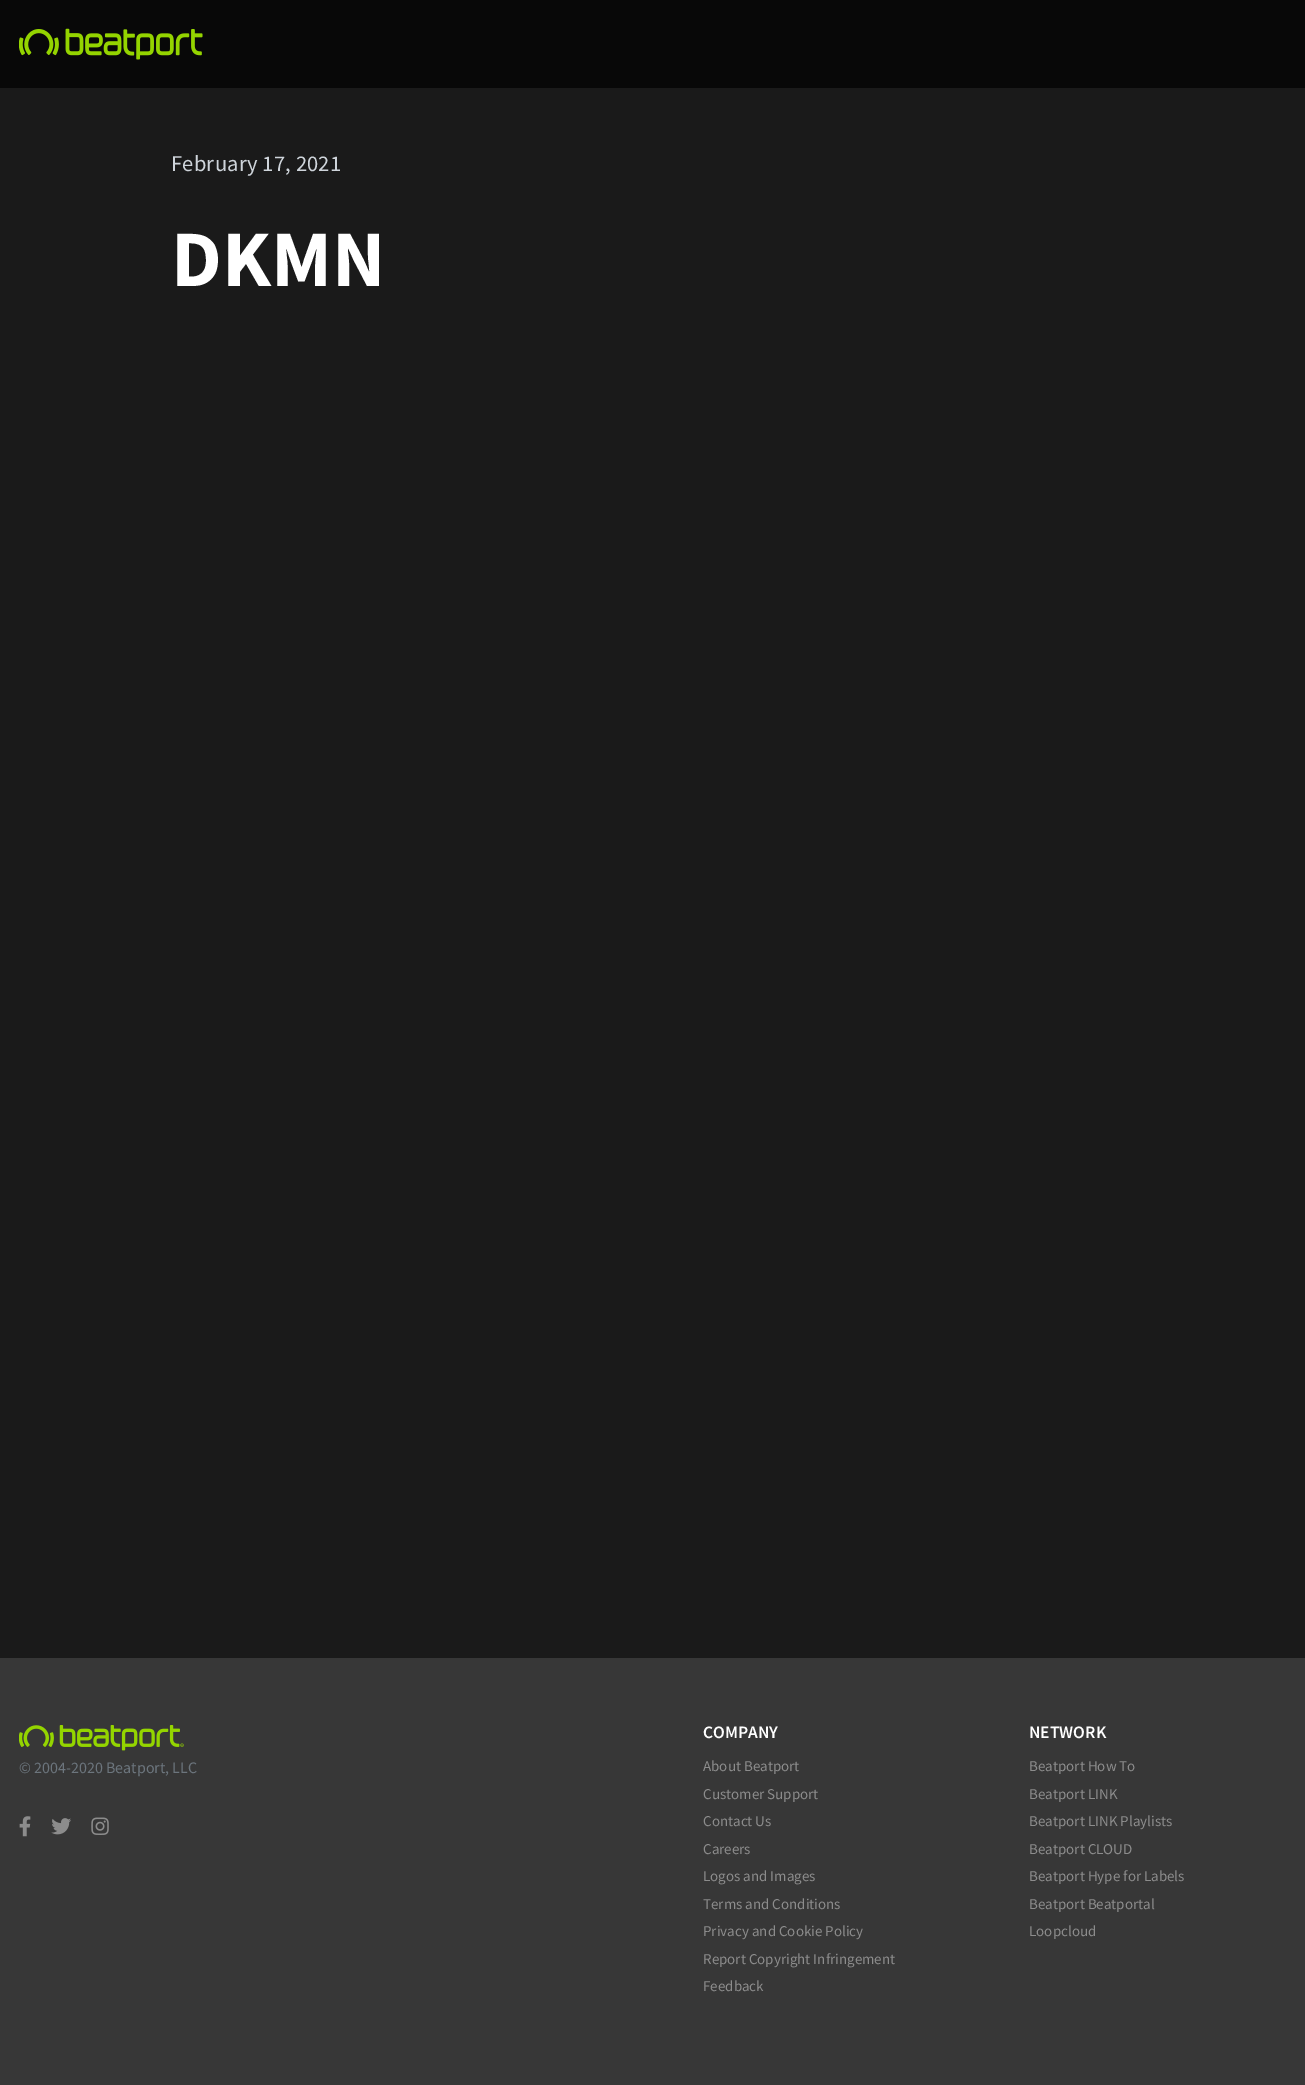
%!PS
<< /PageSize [1305 2085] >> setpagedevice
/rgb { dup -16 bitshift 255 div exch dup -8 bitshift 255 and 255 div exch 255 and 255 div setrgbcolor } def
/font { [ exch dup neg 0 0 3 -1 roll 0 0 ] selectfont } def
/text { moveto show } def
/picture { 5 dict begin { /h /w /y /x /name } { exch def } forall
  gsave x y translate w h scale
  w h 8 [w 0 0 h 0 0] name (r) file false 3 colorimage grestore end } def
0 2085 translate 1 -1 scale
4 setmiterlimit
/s1 { /SourceSansPro-Bold 80 font 16#FFFFFF rgb } def
/s2 { /SourceSansPro-Regular 16 font 16#6C757D rgb } def
/s3 { /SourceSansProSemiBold-SemiBold 17.5 font 16#FFFFFF rgb } def
/s4 { /SourceSansPro-Regular 15 font 16#8C8C8C rgb } def
16#1A1A1A rgb
0 0 1305 2085 rectfill
16#080808 rgb
0 0 1305 88 rectfill
(pic1.raw) 19 28 184 32 picture
/SourceSansPro-Regular 22.5 font
16#CED4DA rgb
171 171 moveto 0.25 0 (February 17, 2021) ashow
s1
(DKMN) 171 286 text
16#373737 rgb
0 1658 1305 427 rectfill
(pic2.raw) 19 1725 165 26 picture
s2
(© 2004-2020 Beatport, LLC) 19 1773 text
(pic3.raw) 19 1816 12 21 picture
(pic4.raw) 51 1818 20 17 picture
(pic5.raw) 91 1817 18 18 picture
s3
(COMPANY) 703 1738 text
s4
(About Beatport) 703 1771 text
(Customer Support) 703 1799 text
(Contact Us) 703 1826 text
(Careers) 703 1854 text
(Logos and Images) 703 1881 text
(Terms and Conditions) 703 1909 text
(Privacy and Cookie Policy) 703 1936 text
(Report Copyright Infringement) 703 1964 text
(Feedback) 703 1991 text
s3
(NETWORK) 1029 1738 text
s4
(Beatport How To) 1029 1771 text
(Beatport LINK) 1029 1799 text
(Beatport LINK Playlists) 1029 1826 text
(Beatport CLOUD) 1029 1854 text
(Beatport Hype for Labels) 1029 1881 text
(Beatport Beatportal) 1029 1909 text
(Loopcloud) 1029 1936 text
showpage
